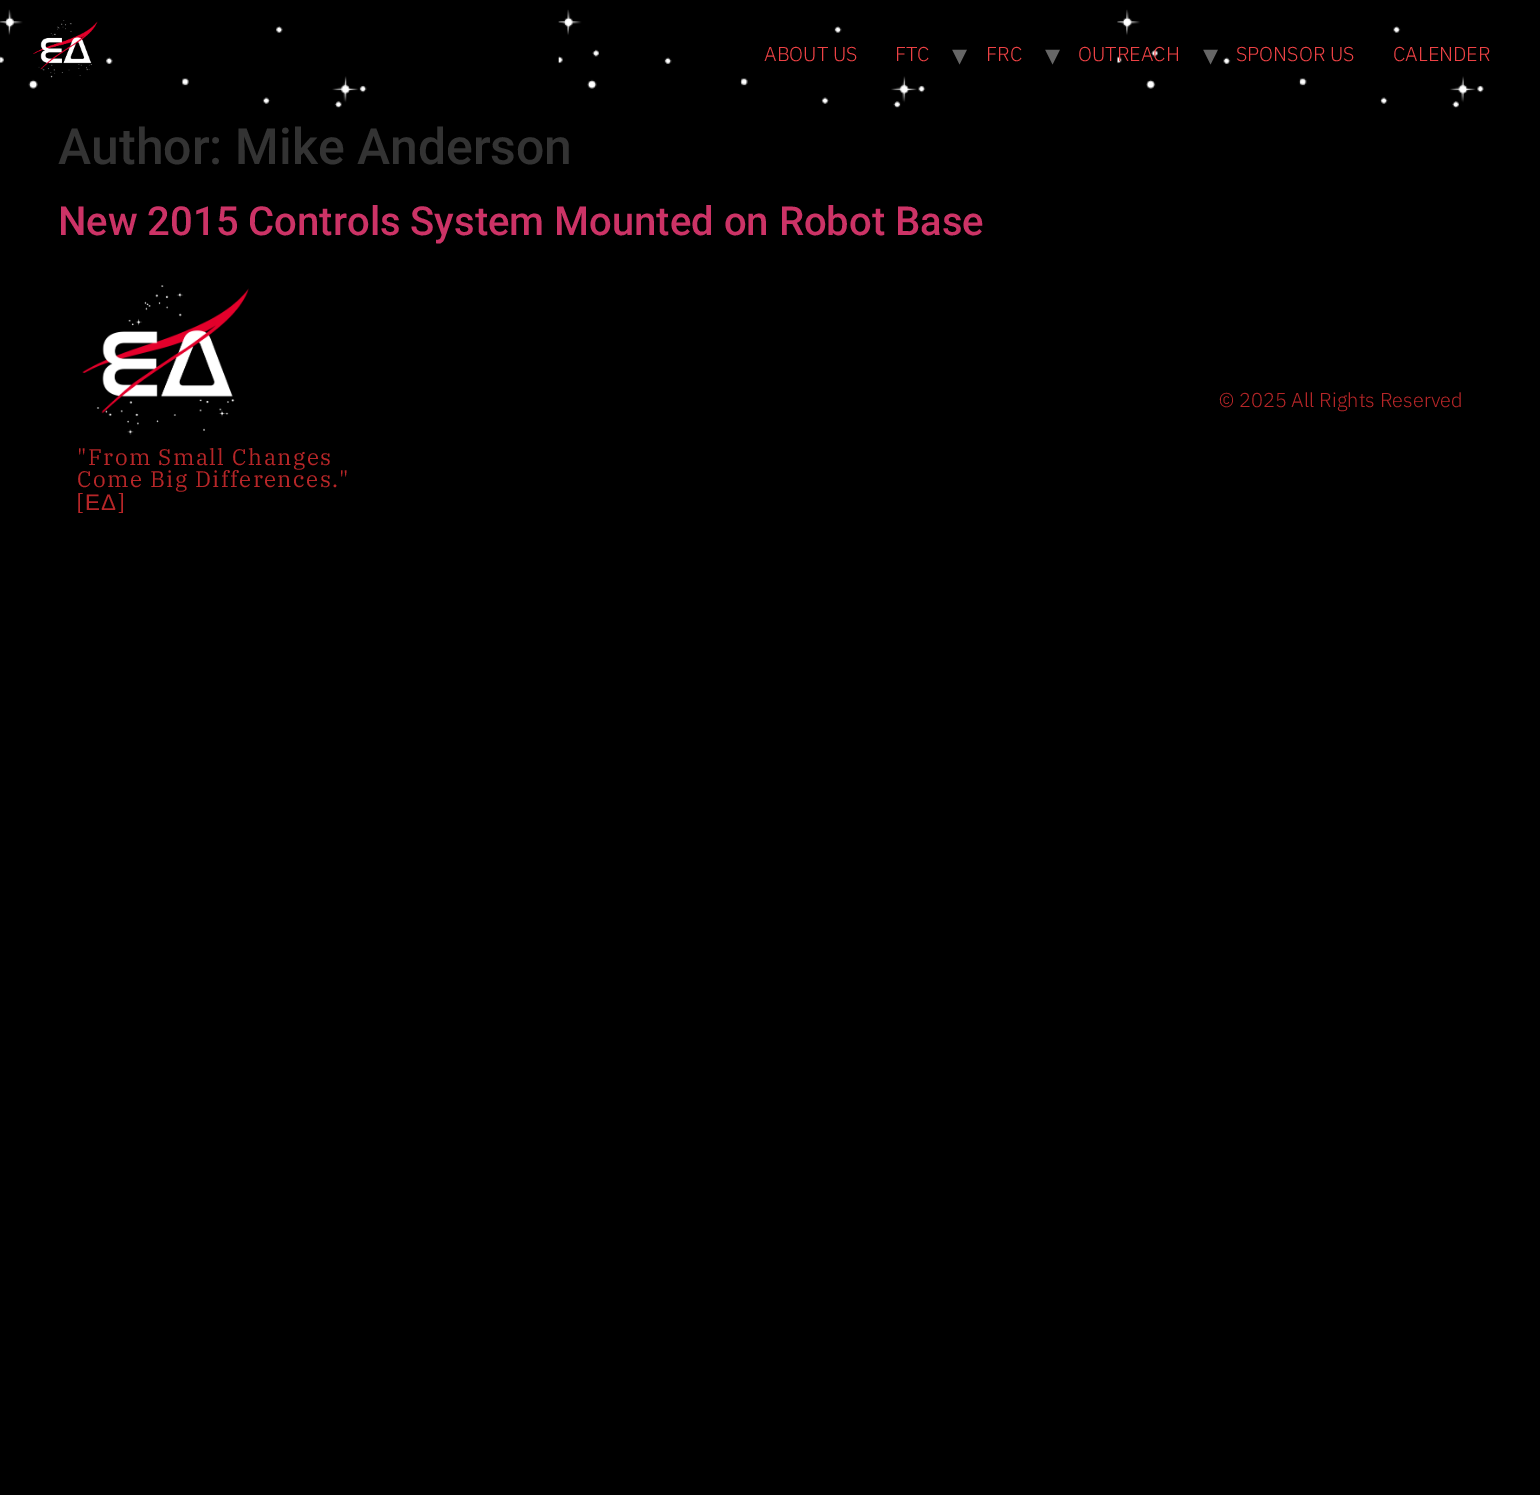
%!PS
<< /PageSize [1540 1495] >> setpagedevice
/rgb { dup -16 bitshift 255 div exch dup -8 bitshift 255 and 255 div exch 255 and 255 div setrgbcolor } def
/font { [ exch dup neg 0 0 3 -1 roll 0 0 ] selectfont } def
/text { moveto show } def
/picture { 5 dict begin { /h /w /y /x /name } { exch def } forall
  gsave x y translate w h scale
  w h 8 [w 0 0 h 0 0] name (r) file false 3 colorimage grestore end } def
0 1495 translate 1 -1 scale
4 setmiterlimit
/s1 { /IBMPlexSans-Light 20 font 16#ED4245 rgb } def
/s2 { /DejaVuSans-Regular 30 font 16#666666 rgb } def
/s3 { /Roboto-Medium 50 font 16#333333 rgb } def
/s4 { /Roboto-Medium 40 font 16#CC3366 rgb } def
/s5 { /IBMPlexSans-Light 20 font 16#B62628 rgb } def
16#000000 rgb
0 0 1540 1495 rectfill
(pic1.raw) 0 9 1484 99 picture
(pic2.raw) 33 20 65 58 picture
s1
(ABOUT US) 764 61 text
(FTC) 895 61 text
s2
(▾) 952 65 text
s1
(FRC) 986 61 text
s2
(▾) 1045 65 text
s1
(OUTREACH) 1078 61 text
s2
(▾) 1203 65 text
s1
(SPONSOR US) 1236 61 text
(CALENDER) 1393 61 text
s3
(Author: Mike Anderson) 58 164 text
s4
(New 2015 Controls System Mounted on Robot Base) 58 235 text
s5
(© 2025 All Rights Reserved) 1219 407 text
(pic3.raw) 82 285 167 150 picture
/IBMPlexSerif-Regular 22.5 font
77 465 moveto 1.4 0 ("From Small Changes) ashow
77 487 moveto 1.4 0 (Come Big Differences.") ashow
77 510 moveto 1.4 0 ([) ashow
/LiberationSans-Regular 22.5 font
85 510 moveto 1.4 0 (ΕΔ) ashow
/IBMPlexSerif-Regular 22.5 font
118 510 moveto 1.4 0 (]) ashow
showpage
